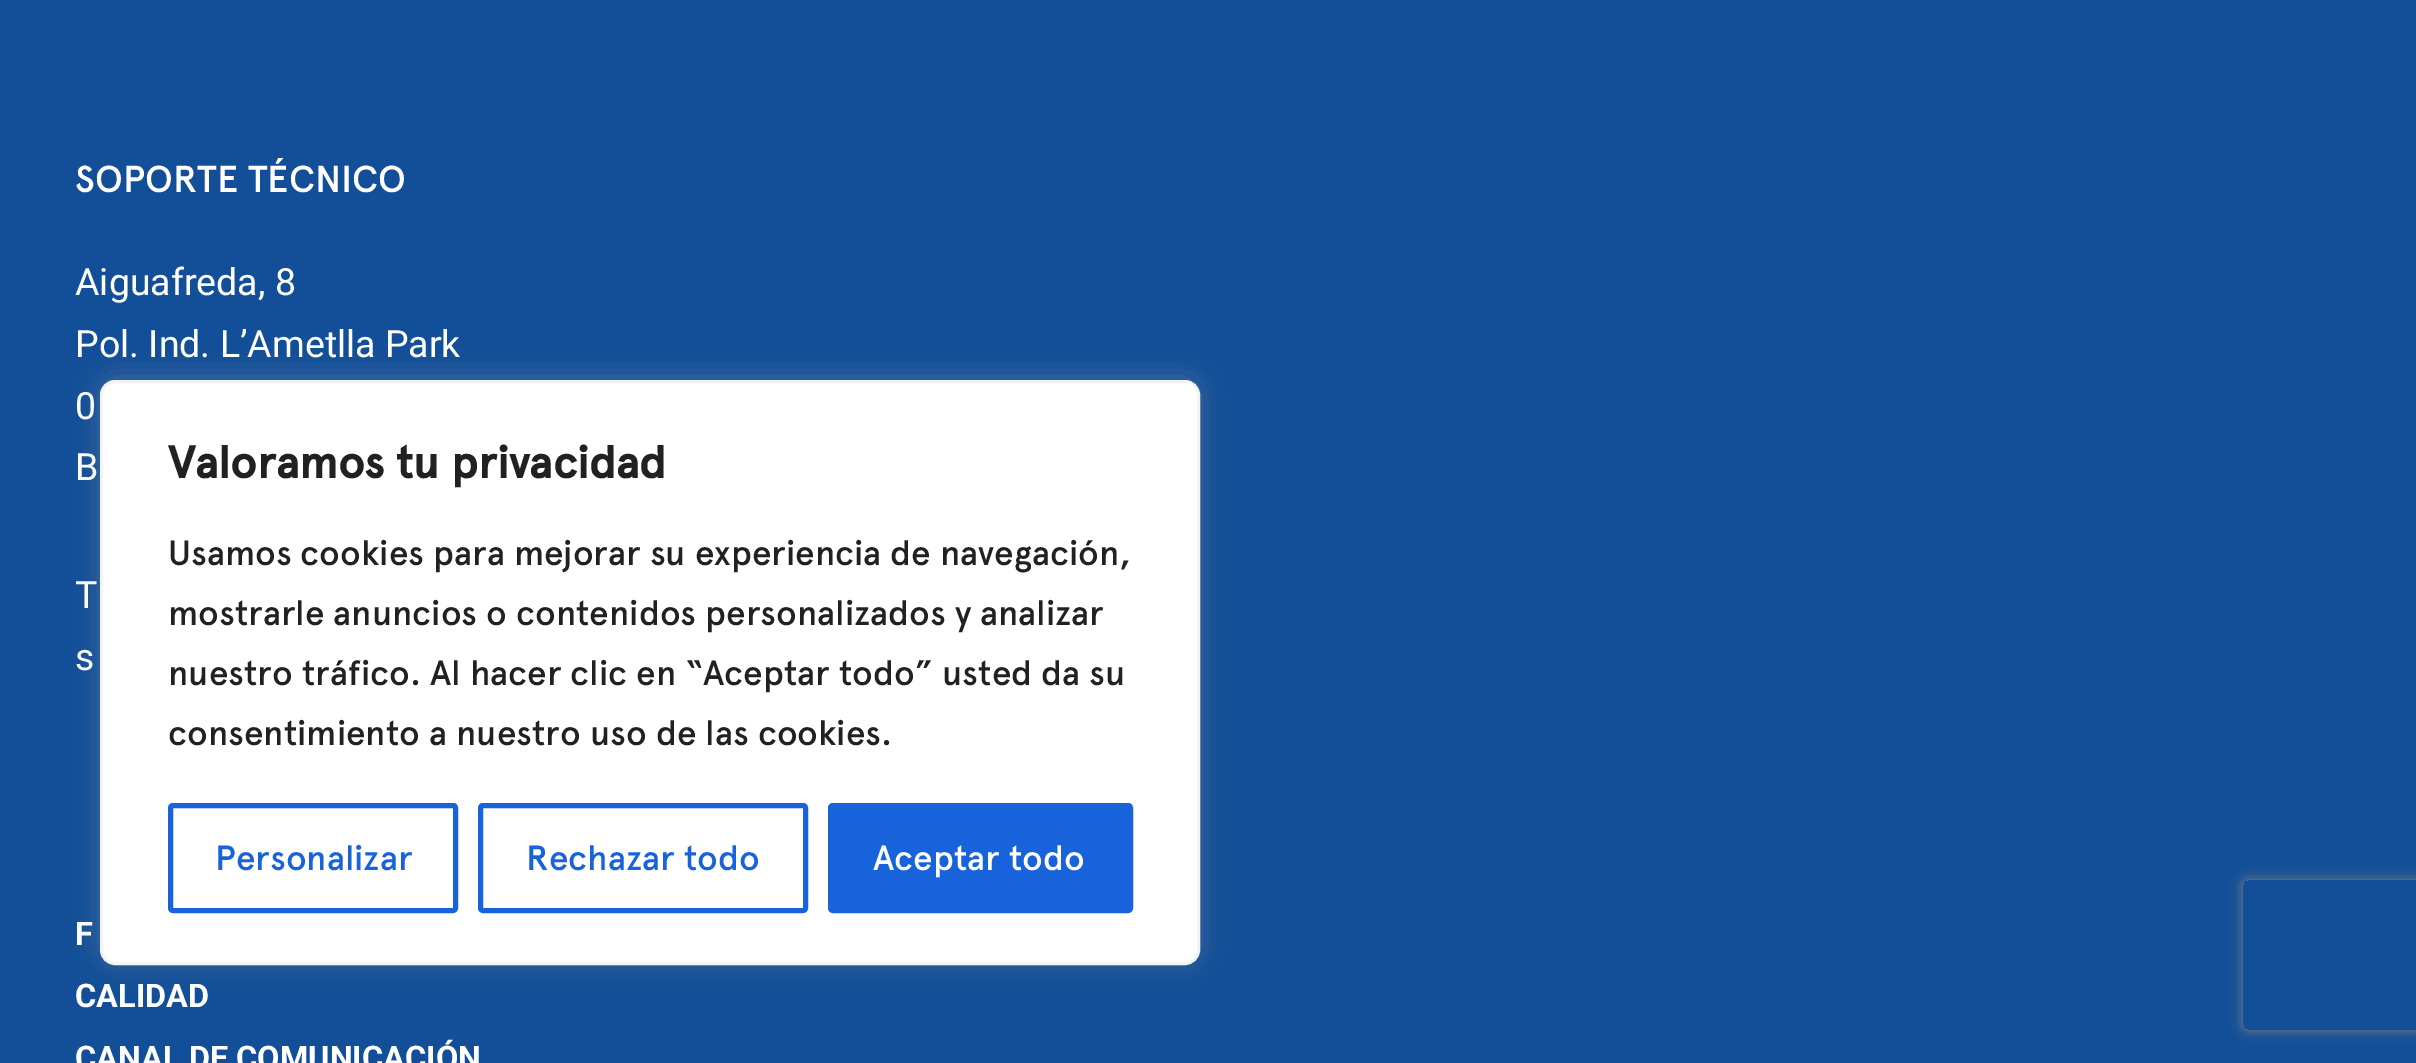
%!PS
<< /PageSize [2416 1063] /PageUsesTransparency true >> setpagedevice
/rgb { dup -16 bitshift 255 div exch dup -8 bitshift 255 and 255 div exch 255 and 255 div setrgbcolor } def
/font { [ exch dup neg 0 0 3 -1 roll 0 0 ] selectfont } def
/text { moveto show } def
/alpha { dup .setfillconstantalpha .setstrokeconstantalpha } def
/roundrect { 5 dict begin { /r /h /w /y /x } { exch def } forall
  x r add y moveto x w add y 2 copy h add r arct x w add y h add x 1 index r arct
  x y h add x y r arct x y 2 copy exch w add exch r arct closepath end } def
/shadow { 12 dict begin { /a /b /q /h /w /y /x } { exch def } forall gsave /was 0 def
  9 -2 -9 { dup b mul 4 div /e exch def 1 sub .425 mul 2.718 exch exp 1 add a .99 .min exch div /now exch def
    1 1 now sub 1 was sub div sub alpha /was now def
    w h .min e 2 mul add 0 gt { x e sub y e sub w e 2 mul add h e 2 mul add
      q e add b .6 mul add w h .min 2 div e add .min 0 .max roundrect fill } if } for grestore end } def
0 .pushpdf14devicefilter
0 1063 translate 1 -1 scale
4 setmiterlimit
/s1 { /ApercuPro-Medium 37.5 font 16#FFFFFF rgb } def
/s2 { /Roboto-Regular 37.5 font 16#FFFFFF rgb } def
/s3 { /Roboto-Bold 32.5 font 16#FFFFFF rgb } def
/s4 { /ApercuPro-Bold 45 font 16#212121 rgb } def
/s5 { /ApercuPro-Medium 35 font 16#212121 rgb } def
/s6 { /ApercuPro-Medium 35 font 16#1863DC rgb } def
/s7 { /ApercuPro-Medium 35 font 16#FFFFFF rgb } def
16#134F98 rgb
0 0 2416 1063 rectfill
s1
(SOPORTE TÉCNICO) 75 192 text
s2
(Aiguafreda, 8) 75 295 text
(Pol. Ind. L’Ametlla Park) 75 357 text
(0) 75 419 text
(B) 75 480 text
(T) 75 608 text
(s) 75 670 text
s3
(F) 75 945 text
(CALIDAD) 75 1007 text
(CANAL DE COMUNICACIÓN) 75 1069 text
16#ACABAB rgb
100 378 1100 585 15 12.5 0.3 shadow
16#FFFFFF rgb
101.5 381.5 1097 582 13.5 roundrect gsave fill grestore
16#F4F4F4 rgb
3 setlinewidth
stroke
s4
(Valoramos tu privacidad) 168 478 text
s5
(Usamos cookies para mejorar su experiencia de navegación,) 168 565 text
(mostrarle anuncios o contenidos personalizados y analizar) 168 625 text
(nuestro tráfico. Al hacer clic en “Aceptar todo” usted da su) 168 685 text
(consentimiento a nuestro uso de las cookies.) 168 745 text
16#1863DC rgb
5 setlinewidth
170.5 805.5 285 105 2.5 roundrect stroke
(Personalizar) 215 870 text
480.5 805.5 325 105 2.5 roundrect stroke
(Rechazar todo) 526 870 text
830.5 805.5 300 105 2.5 roundrect gsave fill grestore
stroke
s7
(Aceptar todo) 873 870 text
gsave
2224 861 moveto 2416 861 lineto 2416 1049 lineto 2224 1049 lineto closepath 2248 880 moveto 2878 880 lineto 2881 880 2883 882 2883 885 curveto 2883 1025 lineto 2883 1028 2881 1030 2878 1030 curveto 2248 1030 lineto 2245 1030 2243 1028 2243 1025 curveto 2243 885 lineto 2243 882 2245 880 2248 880 curveto closepath eoclip newpath
16#808080 rgb
2243 880 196 150 5 6 1 shadow
grestore
.poppdf14devicefilter showpage
